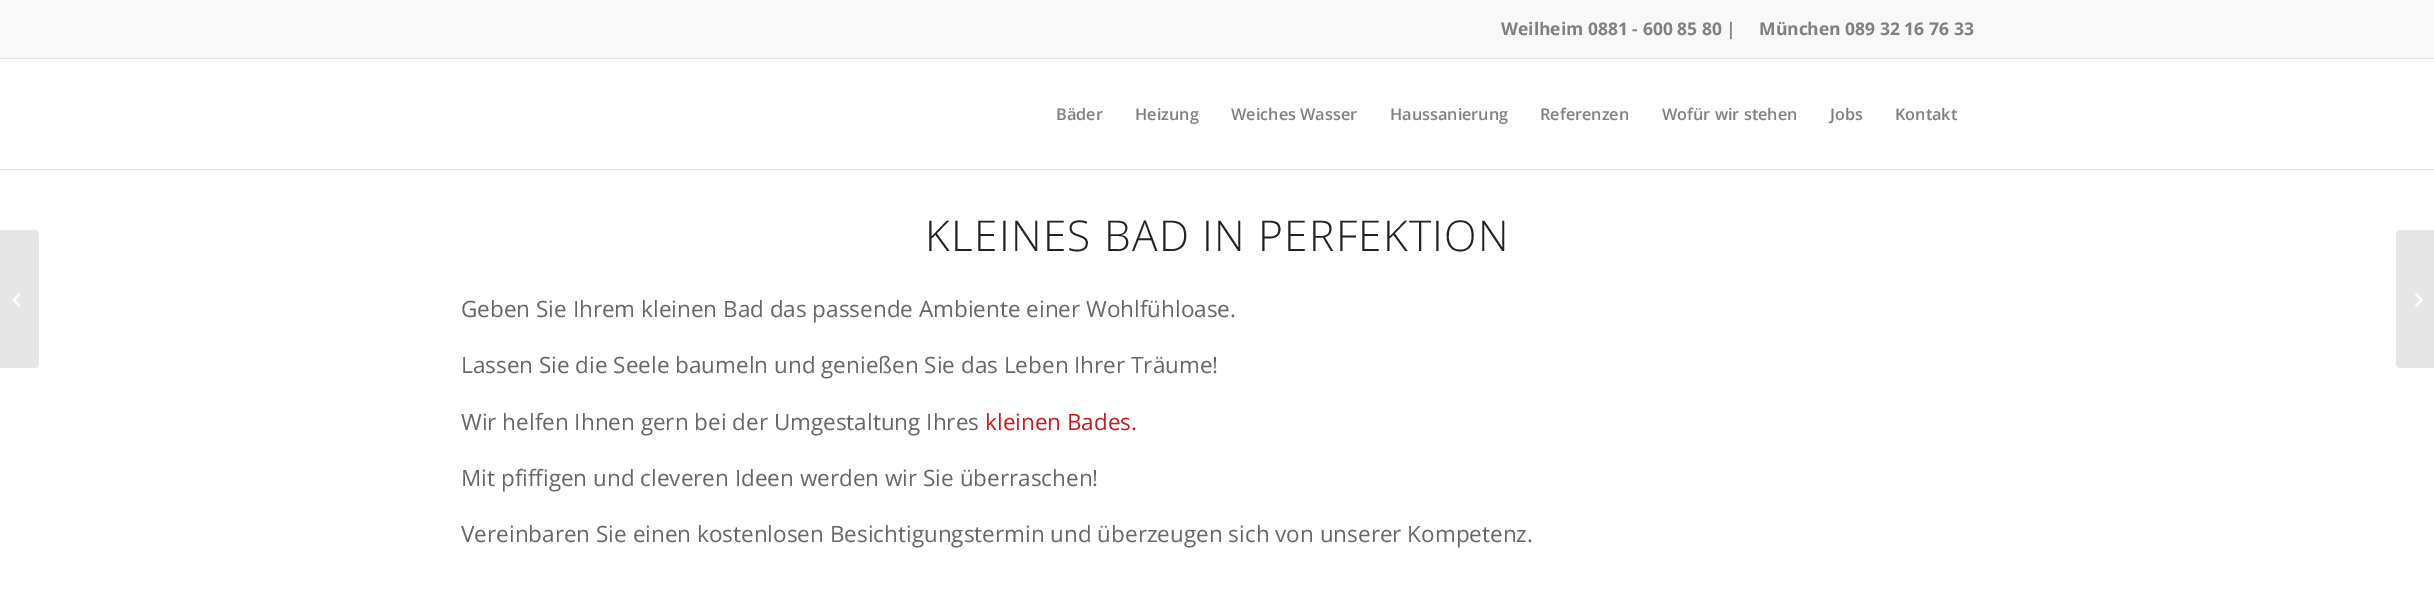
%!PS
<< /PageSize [2434 596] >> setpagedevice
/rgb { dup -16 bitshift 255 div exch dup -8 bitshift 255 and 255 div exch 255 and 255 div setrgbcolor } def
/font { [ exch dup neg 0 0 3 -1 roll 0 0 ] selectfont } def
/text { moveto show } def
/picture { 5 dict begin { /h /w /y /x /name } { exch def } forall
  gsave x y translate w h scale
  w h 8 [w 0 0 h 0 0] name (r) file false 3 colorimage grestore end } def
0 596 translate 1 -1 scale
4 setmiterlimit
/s1 { /OpenSans-Bold 17.5 font 16#808080 rgb } def
/s2 { /OpenSans-SemiBold 16.25 font 16#808080 rgb } def
/s3 { /OpenSans-Regular 22.5 font 16#666666 rgb } def
/s4 { /OpenSans-Regular 22.5 font 16#BD1D1D rgb } def
16#FFFFFF rgb
0 0 2434 596 rectfill
16#F8F8F8 rgb
0 0 2434 58 rectfill
16#E1E1E1 rgb
0 58 2434 1 rectfill
s1
(Weilheim 0881 - 600 85 80 |) 1501 35 text
(München 089 32 16 76 33) 1759 35 text
16#E1E1E1 rgb
0 169 2434 1 rectfill
s2
(Bäder) 1056 120 text
(Heizung) 1135 120 text
(Weiches Wasser) 1231 120 text
(Haussanierung) 1390 120 text
(Referenzen) 1540 120 text
(Wofür wir stehen) 1662 120 text
(Jobs) 1830 120 text
(Kontakt) 1895 120 text
16#E6E6E6 rgb
0 230 moveto 34 230 lineto 37 230 39 232 39 235 curveto 39 363 lineto 39 366 37 368 34 368 curveto 0 368 lineto closepath fill
(pic1.raw) 13 293 7 14 picture
/OpenSans-Light 42.5 font
16#222222 rgb
925 251 moveto 1.25 0 (KLEINES BAD IN PERFEKTION) ashow
s3
(Geben Sie Ihrem kleinen Bad das passende Ambiente einer Wohlfühloase.) 461 317 text
(Lassen Sie die Seele baumeln und genießen Sie das Leben Ihrer Träume!) 461 373 text
(Wir helfen Ihnen gern bei der Umgestaltung Ihres) 461 430 text
s4
(kleinen Bades.) 985 430 text
s3
(Mit pfiffigen und cleveren Ideen werden wir Sie überraschen!) 461 486 text
(Vereinbaren Sie einen kostenlosen Besichtigungstermin und überzeugen sich von unserer Kompetenz.) 461 542 text
16#E6E6E6 rgb
2401 230 moveto 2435 230 lineto 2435 368 lineto 2401 368 lineto 2398 368 2396 366 2396 363 curveto 2396 235 lineto 2396 232 2398 230 2401 230 curveto closepath fill
(pic2.raw) 2415 293 8 14 picture
showpage
